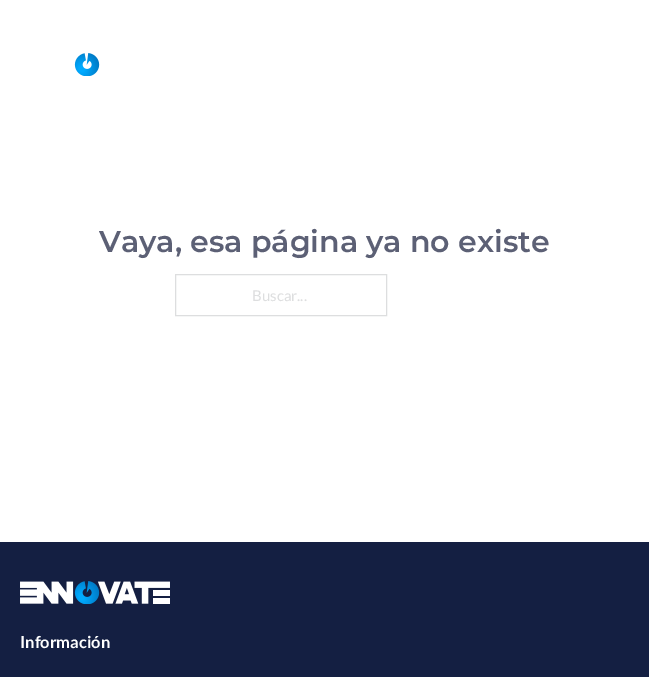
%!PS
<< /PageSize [649 677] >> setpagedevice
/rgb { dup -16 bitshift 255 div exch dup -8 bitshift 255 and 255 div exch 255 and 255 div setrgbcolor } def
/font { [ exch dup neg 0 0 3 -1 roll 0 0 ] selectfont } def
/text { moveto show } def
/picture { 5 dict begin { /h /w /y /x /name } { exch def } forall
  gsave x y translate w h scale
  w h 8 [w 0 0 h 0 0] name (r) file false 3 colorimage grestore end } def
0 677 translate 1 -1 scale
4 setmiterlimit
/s1 { /Montserrat-SemiBold 30 font 16#5C6075 rgb } def
/s2 { /Lato-Regular 15 font 16#DDDEDF rgb } def
/s3 { /Lato-Bold 16.5 font 16#FFFFFF rgb } def
16#FFFFFF rgb
0 0 649 677 rectfill
(pic1.raw) 74 53 26 23 picture
s1
(Vaya, esa página ya no existe) 99 252 text
16#DDDEDF rgb
175.5 274.5 211 41 rectstroke
s2
(Buscar...) 252 301 text
16#141F42 rgb
0 542 649 135 rectfill
(pic2.raw) 20 581 150 23 picture
s3
(Información) 20 648 text
showpage
